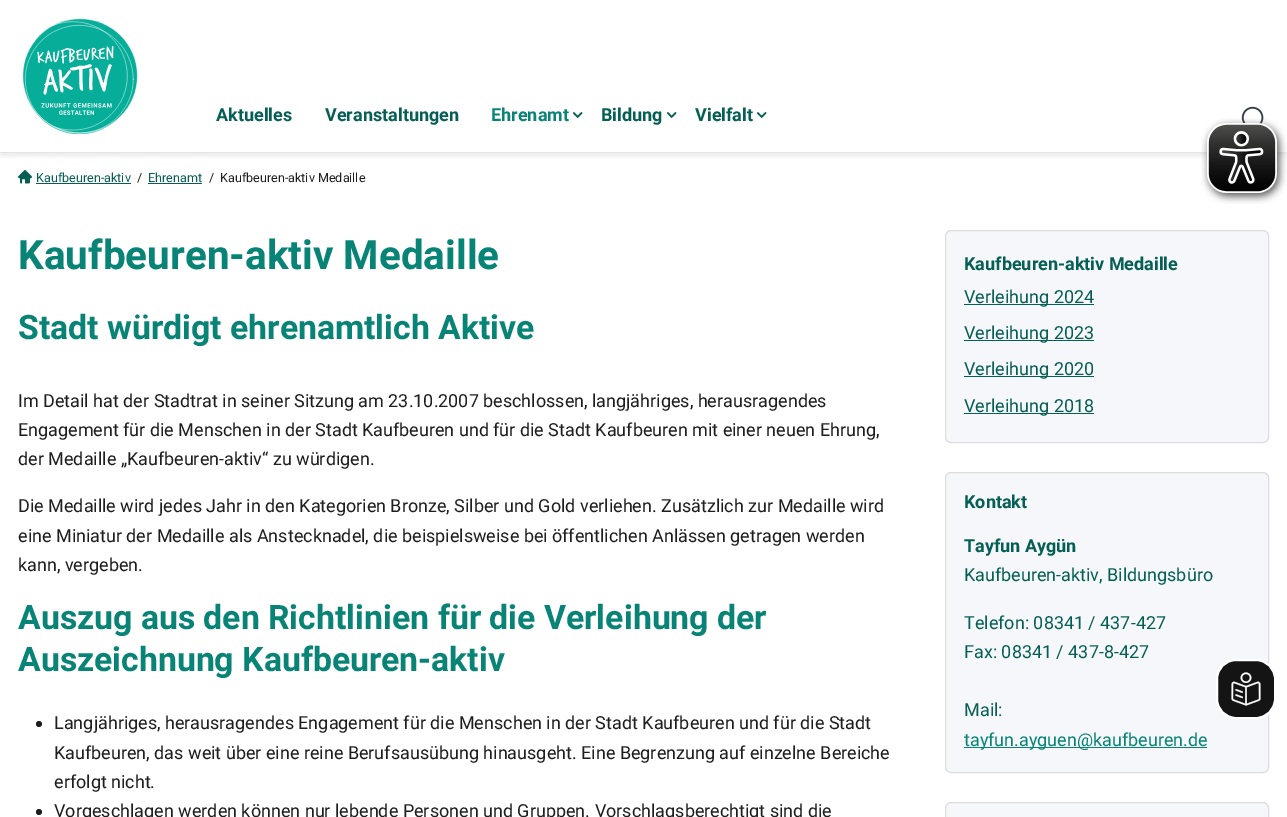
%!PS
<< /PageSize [1287 817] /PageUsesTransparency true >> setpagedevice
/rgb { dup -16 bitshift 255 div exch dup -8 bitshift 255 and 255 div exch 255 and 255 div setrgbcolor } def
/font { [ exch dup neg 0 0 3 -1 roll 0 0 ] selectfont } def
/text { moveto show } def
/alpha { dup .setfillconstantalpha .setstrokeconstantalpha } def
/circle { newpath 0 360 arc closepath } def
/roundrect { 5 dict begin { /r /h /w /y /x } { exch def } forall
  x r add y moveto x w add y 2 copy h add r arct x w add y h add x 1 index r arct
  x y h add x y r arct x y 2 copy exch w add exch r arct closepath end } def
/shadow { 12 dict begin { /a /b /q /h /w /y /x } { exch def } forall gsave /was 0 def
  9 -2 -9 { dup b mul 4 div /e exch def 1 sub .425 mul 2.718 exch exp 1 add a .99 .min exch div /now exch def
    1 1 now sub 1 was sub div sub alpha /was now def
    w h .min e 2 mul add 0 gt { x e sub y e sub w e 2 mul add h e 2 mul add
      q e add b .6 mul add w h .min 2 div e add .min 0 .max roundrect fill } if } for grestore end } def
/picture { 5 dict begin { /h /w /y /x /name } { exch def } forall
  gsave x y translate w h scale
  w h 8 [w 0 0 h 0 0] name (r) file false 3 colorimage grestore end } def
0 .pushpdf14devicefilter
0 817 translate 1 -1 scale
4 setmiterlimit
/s1 { /Roboto-Bold 18 font 16#065F54 rgb } def
/s2 { /Roboto-Bold 18 font 16#088476 rgb } def
/s3 { /Roboto-Regular 12.6 font 16#065F54 rgb } def
/s4 { /Roboto-Regular 12.6 font 16#1E1E1E rgb } def
/s5 { /Roboto-Bold 40.5 font 16#088476 rgb } def
/s6 { /Roboto-Bold 33.75 font 16#088476 rgb } def
/s7 { /Roboto-Regular 18 font 16#1E1E1E rgb } def
/s8 { /Roboto-Regular 18 font 16#065F54 rgb } def
/s9 { /Roboto-Regular 18 font 16#088476 rgb } def
16#FFFFFF rgb
0 0 1287 817 rectfill
gsave
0 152 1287 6 rectclip
16#000000 rgb
0 0 1287 152 0 5 0.2 shadow
grestore
(pic1.raw) 22 18 116 116 picture
s1
(Aktuelles) 216 121 text
(Veranstaltungen) 325 121 text
s2
(Ehrenamt) 491 121 text
(pic2.raw) 573 112 10 6 picture
s1
(Bildung) 601 121 text
(pic2.raw) 667 112 10 6 picture
(Vielfalt) 695 121 text
(pic2.raw) 757 112 10 6 picture
(pic3.raw) 1241 106 23 19 picture
(pic4.raw) 18 170 14 14 picture
s3
(Kaufbeuren-aktiv) 36 182 text
36 183 95 1 rectfill
s4
(/) 137 182 text
s3
(Ehrenamt) 148 182 text
148 183 54 1 rectfill
s4
(/) 209 182 text
(Kaufbeuren-aktiv Medaille) 220 182 text
s5
(Kaufbeuren-aktiv Medaille) 18 269 text
s6
(Stadt würdigt ehrenamtlich Aktive) 18 339 text
s7
(Im Detail hat der Stadtrat in seiner Sitzung am 23.10.2007 beschlossen, langjähriges, herausragendes) 18 407 text
(Engagement für die Menschen in der Stadt Kaufbeuren und für die Stadt Kaufbeuren mit einer neuen Ehrung,) 18 436 text
(der Medaille „Kaufbeuren-aktiv“ zu würdigen.) 18 465 text
(Die Medaille wird jedes Jahr in den Kategorien Bronze, Silber und Gold verliehen. Zusätzlich zur Medaille wird) 18 512 text
(eine Miniatur der Medaille als Anstecknadel, die beispielsweise bei öffentlichen Anlässen getragen werden) 18 542 text
(kann, vergeben.) 18 571 text
s6
(Auszug aus den Richtlinien für die Verleihung der) 18 629 text
(Auszeichnung Kaufbeuren-aktiv) 18 671 text
16#1E1E1E rgb
39 724 3 circle fill
s7
(Langjähriges, herausragendes Engagement für die Menschen in der Stadt Kaufbeuren und für die Stadt) 54 729 text
(Kaufbeuren, das weit über eine reine Berufsausübung hinausgeht. Eine Begrenzung auf einzelne Bereiche) 54 759 text
(erfolgt nicht.) 54 788 text
39 812 3 circle fill
(Vorgeschlagen werden können nur lebende Personen und Gruppen. Vorschlagsberechtigt sind die) 54 817 text
16#F5F7FA rgb
945.5 230.5 323 212 5.5 roundrect gsave fill grestore
16#DDDDDD rgb
stroke
s1
(Kaufbeuren-aktiv Medaille) 964 270 text
964 304 130 1 rectfill
s8
(Verleihung 2024) 964 303 text
964 340 130 1 rectfill
(Verleihung 2023) 964 339 text
964 376 130 1 rectfill
(Verleihung 2020) 964 375 text
964 413 130 1 rectfill
(Verleihung 2018) 964 412 text
16#F5F7FA rgb
945.5 472.5 323 300 5.5 roundrect gsave fill grestore
16#DDDDDD rgb
stroke
s1
(Kontakt) 964 508 text
(Tayfun Aygün) 964 552 text
s8
(Kaufbeuren-aktiv, Bildungsbüro) 964 581 text
(Telefon: 08341 / 437-427) 964 629 text
(Fax: 08341 / 437-8-427) 964 658 text
(Mail:) 964 716 text
16#088476 rgb
964 747 243 1 rectfill
(tayfun.ayguen@kaufbeuren.de) 964 746 text
16#F5F7FA rgb
945.5 802.5 323 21 5.5 roundrect gsave fill grestore
16#DDDDDD rgb
stroke
16#151414 rgb
1217 660 58 58 19 roundrect gsave fill grestore
16#FFFFFF rgb
2 setlinewidth
stroke
(pic5.raw) 1231 672 30 34 picture
(pic6.raw) 1201 118 86 86 picture
.poppdf14devicefilter showpage
